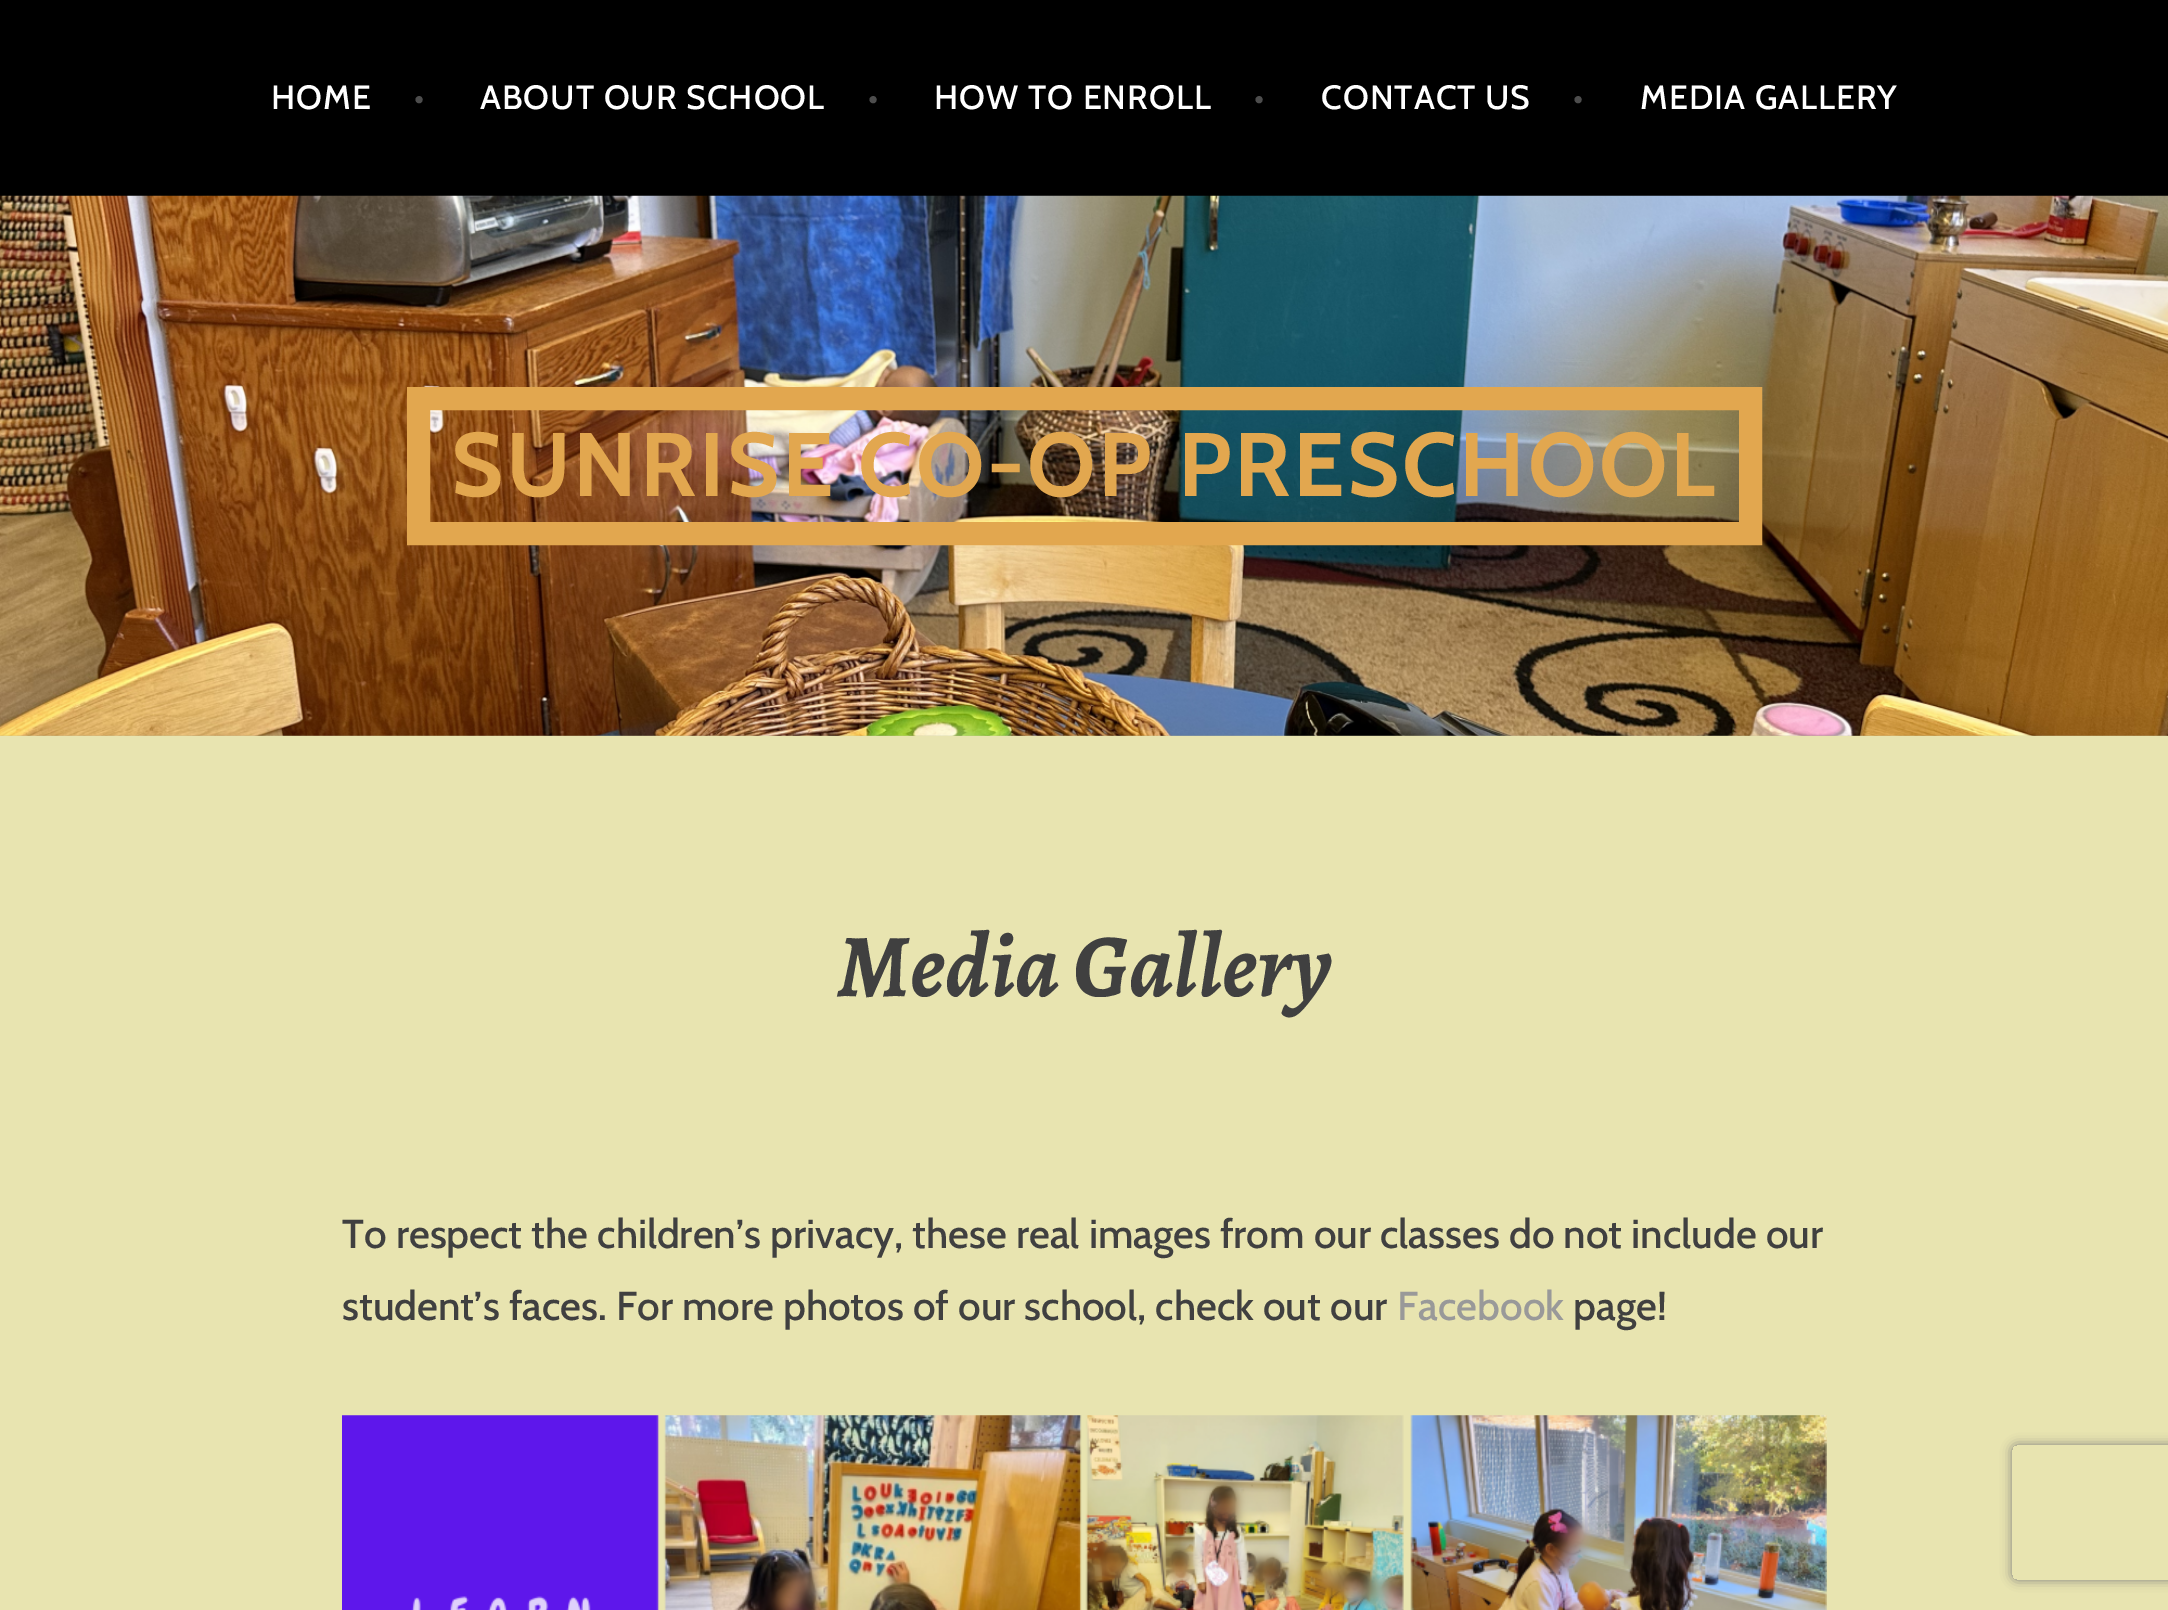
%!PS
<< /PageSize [2168 1610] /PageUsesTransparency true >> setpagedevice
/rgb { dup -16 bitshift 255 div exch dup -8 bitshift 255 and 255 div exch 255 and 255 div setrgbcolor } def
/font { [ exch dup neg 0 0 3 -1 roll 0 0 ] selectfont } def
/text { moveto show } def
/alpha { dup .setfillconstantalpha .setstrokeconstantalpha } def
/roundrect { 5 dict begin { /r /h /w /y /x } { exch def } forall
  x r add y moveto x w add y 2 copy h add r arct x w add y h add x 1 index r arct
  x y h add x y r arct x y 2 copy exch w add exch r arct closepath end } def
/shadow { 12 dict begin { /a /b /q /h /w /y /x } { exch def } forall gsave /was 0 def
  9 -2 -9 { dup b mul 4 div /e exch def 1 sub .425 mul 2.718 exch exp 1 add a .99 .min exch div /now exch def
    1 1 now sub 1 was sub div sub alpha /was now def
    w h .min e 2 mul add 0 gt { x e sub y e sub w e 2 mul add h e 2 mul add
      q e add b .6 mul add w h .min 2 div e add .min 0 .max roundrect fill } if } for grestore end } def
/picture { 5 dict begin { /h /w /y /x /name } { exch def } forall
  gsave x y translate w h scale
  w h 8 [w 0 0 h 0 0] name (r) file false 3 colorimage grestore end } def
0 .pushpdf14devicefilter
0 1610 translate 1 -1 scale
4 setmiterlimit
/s1 { /Alegreya-BoldItalic 90 font 16#404040 rgb } def
/s2 { /Cabin-Medium 40.5 font 16#404040 rgb } def
/s3 { /Cabin-Medium 40.5 font 16#999999 rgb } def
16#E8E4B0 rgb
0 0 2168 1610 rectfill
16#000000 rgb
0 0 2168 196 rectfill
/Cabin-Medium 33.75 font
16#FFFFFF rgb
271 109 moveto 1 0 (HOME) ashow
16#4D4D4D rgb
414 109 moveto 1 0 (•) ashow
16#FFFFFF rgb
480 109 moveto 1 0 (ABOUT OUR SCHOOL) ashow
16#4D4D4D rgb
868 109 moveto 1 0 (•) ashow
16#FFFFFF rgb
934 109 moveto 1 0 (HOW TO ENROLL) ashow
16#4D4D4D rgb
1254 109 moveto 1 0 (•) ashow
16#FFFFFF rgb
1321 109 moveto 1 0 (CONTACT US) ashow
16#4D4D4D rgb
1573 109 moveto 1 0 (•) ashow
16#FFFFFF rgb
1640 109 moveto 1 0 (MEDIA GALLERY) ashow
(pic1.raw) 0 195 2168 541 picture
16#E2A74F rgb
23 setlinewidth
418.5 398.5 1332 135 rectstroke
/Cabin-Bold 90 font
451 496 moveto 2.7 0 (SUNRISE CO-OP PRESCHOOL) ashow
s1
(Media Gallery) 837 996 text
s2
(To respect the children’s privacy, these real images from our classes do not include our) 342 1248 text
(student’s faces. For more photos of our school, check out our) 342 1320 text
s3
(Facebook) 1397 1320 text
s2
(page!) 1573 1320 text
(pic2.raw) 342 1415 1485 195 picture
gsave
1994 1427 moveto 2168 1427 lineto 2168 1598 lineto 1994 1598 lineto closepath 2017 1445 moveto 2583 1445 lineto 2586 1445 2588 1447 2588 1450 curveto 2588 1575 lineto 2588 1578 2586 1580 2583 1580 curveto 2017 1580 lineto 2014 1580 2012 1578 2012 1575 curveto 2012 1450 lineto 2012 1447 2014 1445 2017 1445 curveto closepath eoclip newpath
16#808080 rgb
2012 1445 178 135 5 5.5 1 shadow
grestore
.poppdf14devicefilter showpage
